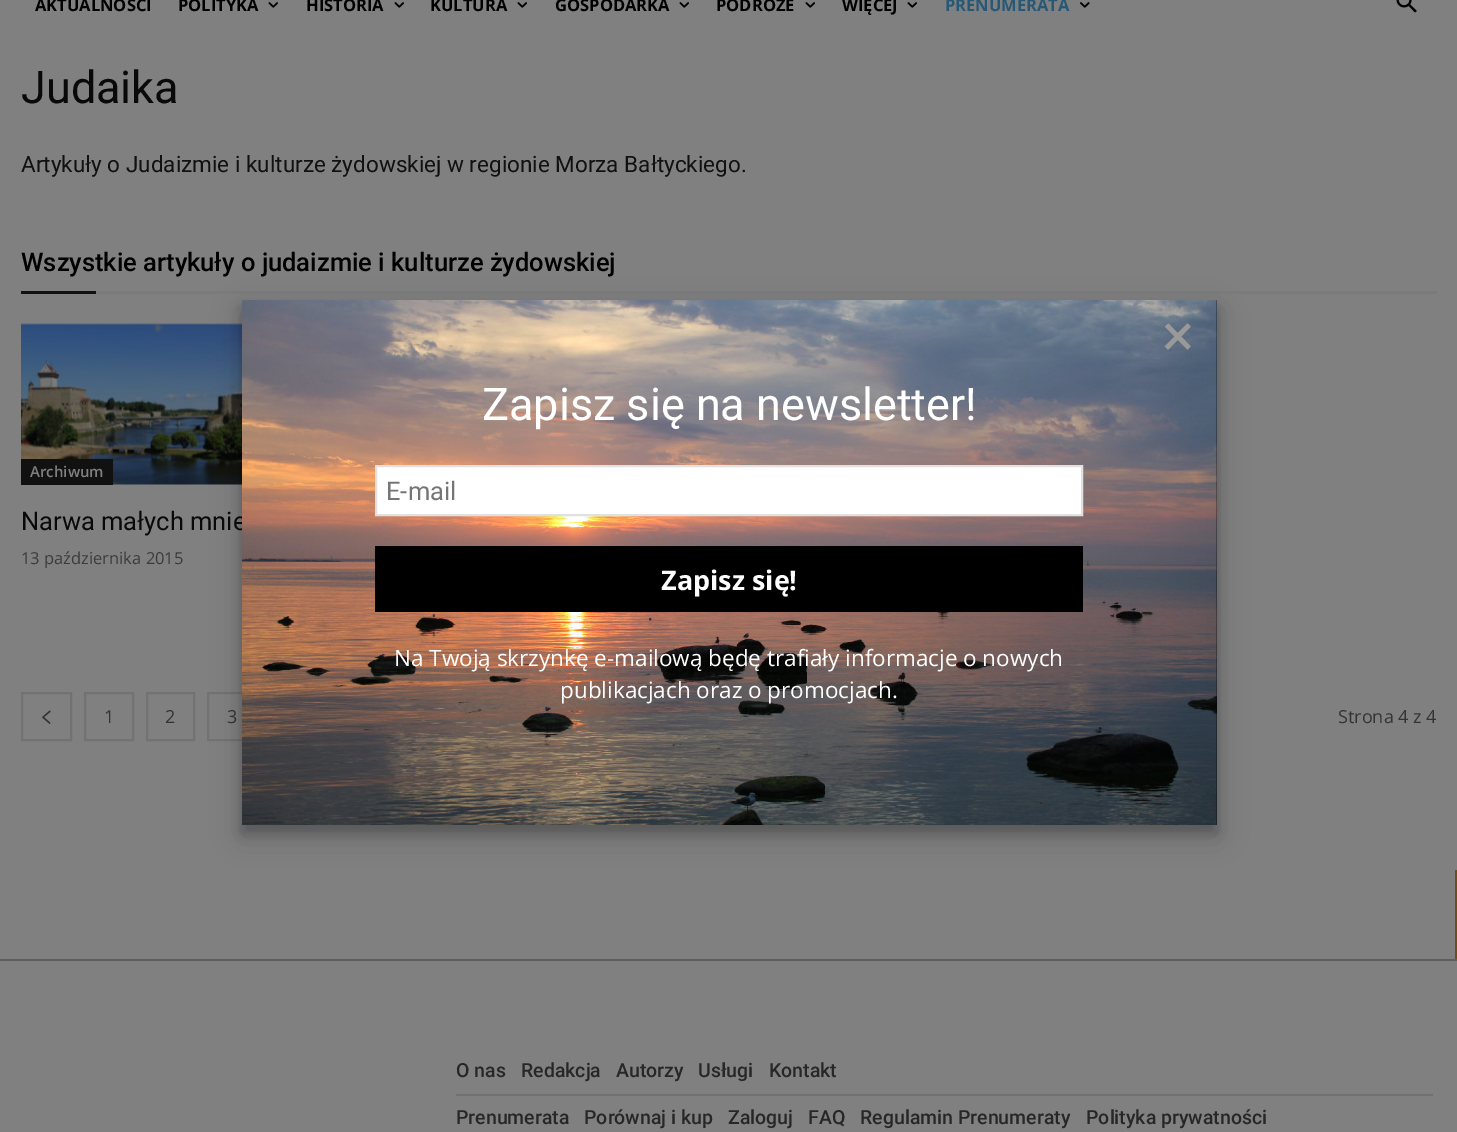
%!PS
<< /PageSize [1457 1132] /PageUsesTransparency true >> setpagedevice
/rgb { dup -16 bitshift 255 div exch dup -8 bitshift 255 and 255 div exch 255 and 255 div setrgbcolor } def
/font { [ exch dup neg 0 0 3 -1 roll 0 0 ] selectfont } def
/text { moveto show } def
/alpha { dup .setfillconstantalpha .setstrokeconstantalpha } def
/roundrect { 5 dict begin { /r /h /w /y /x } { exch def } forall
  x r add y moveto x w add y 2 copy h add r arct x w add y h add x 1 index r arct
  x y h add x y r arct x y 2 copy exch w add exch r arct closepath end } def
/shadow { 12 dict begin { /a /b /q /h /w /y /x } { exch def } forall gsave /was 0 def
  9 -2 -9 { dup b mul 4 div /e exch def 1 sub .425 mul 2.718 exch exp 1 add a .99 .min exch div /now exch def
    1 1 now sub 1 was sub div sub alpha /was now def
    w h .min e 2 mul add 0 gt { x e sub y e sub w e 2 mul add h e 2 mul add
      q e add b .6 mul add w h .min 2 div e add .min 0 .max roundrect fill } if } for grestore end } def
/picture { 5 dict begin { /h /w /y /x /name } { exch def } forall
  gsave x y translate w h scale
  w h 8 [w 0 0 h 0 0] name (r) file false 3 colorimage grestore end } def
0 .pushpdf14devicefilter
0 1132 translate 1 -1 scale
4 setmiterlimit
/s1 { /OpenSans-Bold 16.5 font 16#000000 rgb } def
/s2 { /OpenSans-Bold 16.5 font 16#275976 rgb } def
/s3 { /Roboto-Regular 45 font 16#090909 rgb } def
/s4 { /Roboto-Regular 22.5 font 16#111111 rgb } def
/s5 { /Roboto-Medium 25.5 font 16#000000 rgb } def
/s6 { /OpenSans-SemiBold 15 font 16#808080 rgb } def
/s7 { /Roboto-Regular 25.5 font 16#090909 rgb } def
/s8 { /OpenSans-Regular 16.5 font 16#3B3B3B rgb } def
/s9 { /OpenSans-Regular 18 font 16#333333 rgb } def
/s10 { /Roboto-Medium 19.5 font 16#282626 rgb } def
/s11 { /Roboto-Regular 60 font 16#999999 rgb } def
/s12 { /Roboto-Regular 45 font 16#FFFFFF rgb } def
/s13 { /Roboto-Regular 25.5 font 16#757575 rgb } def
/s14 { /OpenSans-Bold 27 font 16#FFFFFF rgb } def
/s15 { /OpenSans-Regular 22.5 font 16#FFFFFF rgb } def
16#808080 rgb
0 0 1457 1132 rectfill
s1
(AKTUALNOŚCI) 35 11 text
(POLITYKA) 178 11 text
(pic1.raw) 268 2 10 6 picture
(HISTORIA) 306 11 text
(pic1.raw) 394 2 10 6 picture
(KULTURA) 430 11 text
(pic1.raw) 517 2 10 6 picture
(GOSPODARKA) 555 11 text
(pic1.raw) 679 2 10 6 picture
(PODRÓŻE) 716 11 text
(pic1.raw) 805 2 10 6 picture
(WIĘCEJ) 842 11 text
(pic1.raw) 907 2 10 6 picture
s2
(PRENUMERATA) 945 11 text
(pic2.raw) 1080 2 10 6 picture
(pic3.raw) 1396 0 21 13 picture
s3
(Judaika) 21 103 text
s4
(Artykuły o Judaizmie i kulturze żydowskiej w regionie Morza Bałtyckiego.) 21 172 text
s5
(Wszystkie artykuły o judaizmie i kulturze żydowskiej) 21 271 text
16#111111 rgb
21 291 75 3 rectfill
16#7B7B7B rgb
96 291 1341 3 rectfill
(pic4.raw) 21 323 221 162 picture
16#111111 rgb
21 459 92 26 rectfill
s6
(Archiwum) 30 477 text
s7
(Narwa małych mnie) 21 530 text
s8
(13 października 2015) 21 564 text
16#727272 rgb
2 setlinewidth
22 693 49 47 rectstroke
(pic5.raw) 42 710 9 14 picture
85 693 48 47 rectstroke
s9
(1) 104 723 text
16#727272 rgb
147 693 47 47 rectstroke
s9
(2) 165 723 text
16#727272 rgb
208 693 48 47 rectstroke
s9
(3) 227 723 text
(Strona 4 z 4) 1338 723 text
16#6F4D1A rgb
1455 870 2 89 rectfill
16#5E5E5E rgb
0 959 1457 2 rectfill
16#717171 rgb
456 1094 977 2 rectfill
s10
(O nas) 456 1077 text
(Redakcja) 521 1077 text
(Autorzy) 616 1077 text
(Usługi) 698 1077 text
(Kontakt) 769 1077 text
(Prenumerata) 456 1124 text
(Porównaj i kup) 584 1124 text
(Zaloguj) 728 1124 text
(FAQ) 808 1124 text
(Regulamin Prenumeraty) 860 1124 text
(Polityka prywatności) 1086 1124 text
16#000000 rgb
242 311 975 525 0 15 0.17 shadow
242 308 975 525 0 6 0.2 shadow
(pic6.raw) 242 300 975 525 picture
s11
(×) 1162 356 text
s12
(Zapisz się na newsletter!) 482 420 text
376 466 moveto 1082 466 lineto 1082 515 lineto 376 515 lineto closepath gsave fill grestore
16#E1E1E1 rgb
stroke
s13
(E-mail) 386 500 text
16#000000 rgb
375 546 708 66 rectfill
s14
(Zapisz się!) 661 590 text
s15
(Na Twoją skrzynkę e-mailową będę trafiały informacje o nowych) 394 666 text
(publikacjach oraz o promocjach.) 560 698 text
.poppdf14devicefilter showpage
